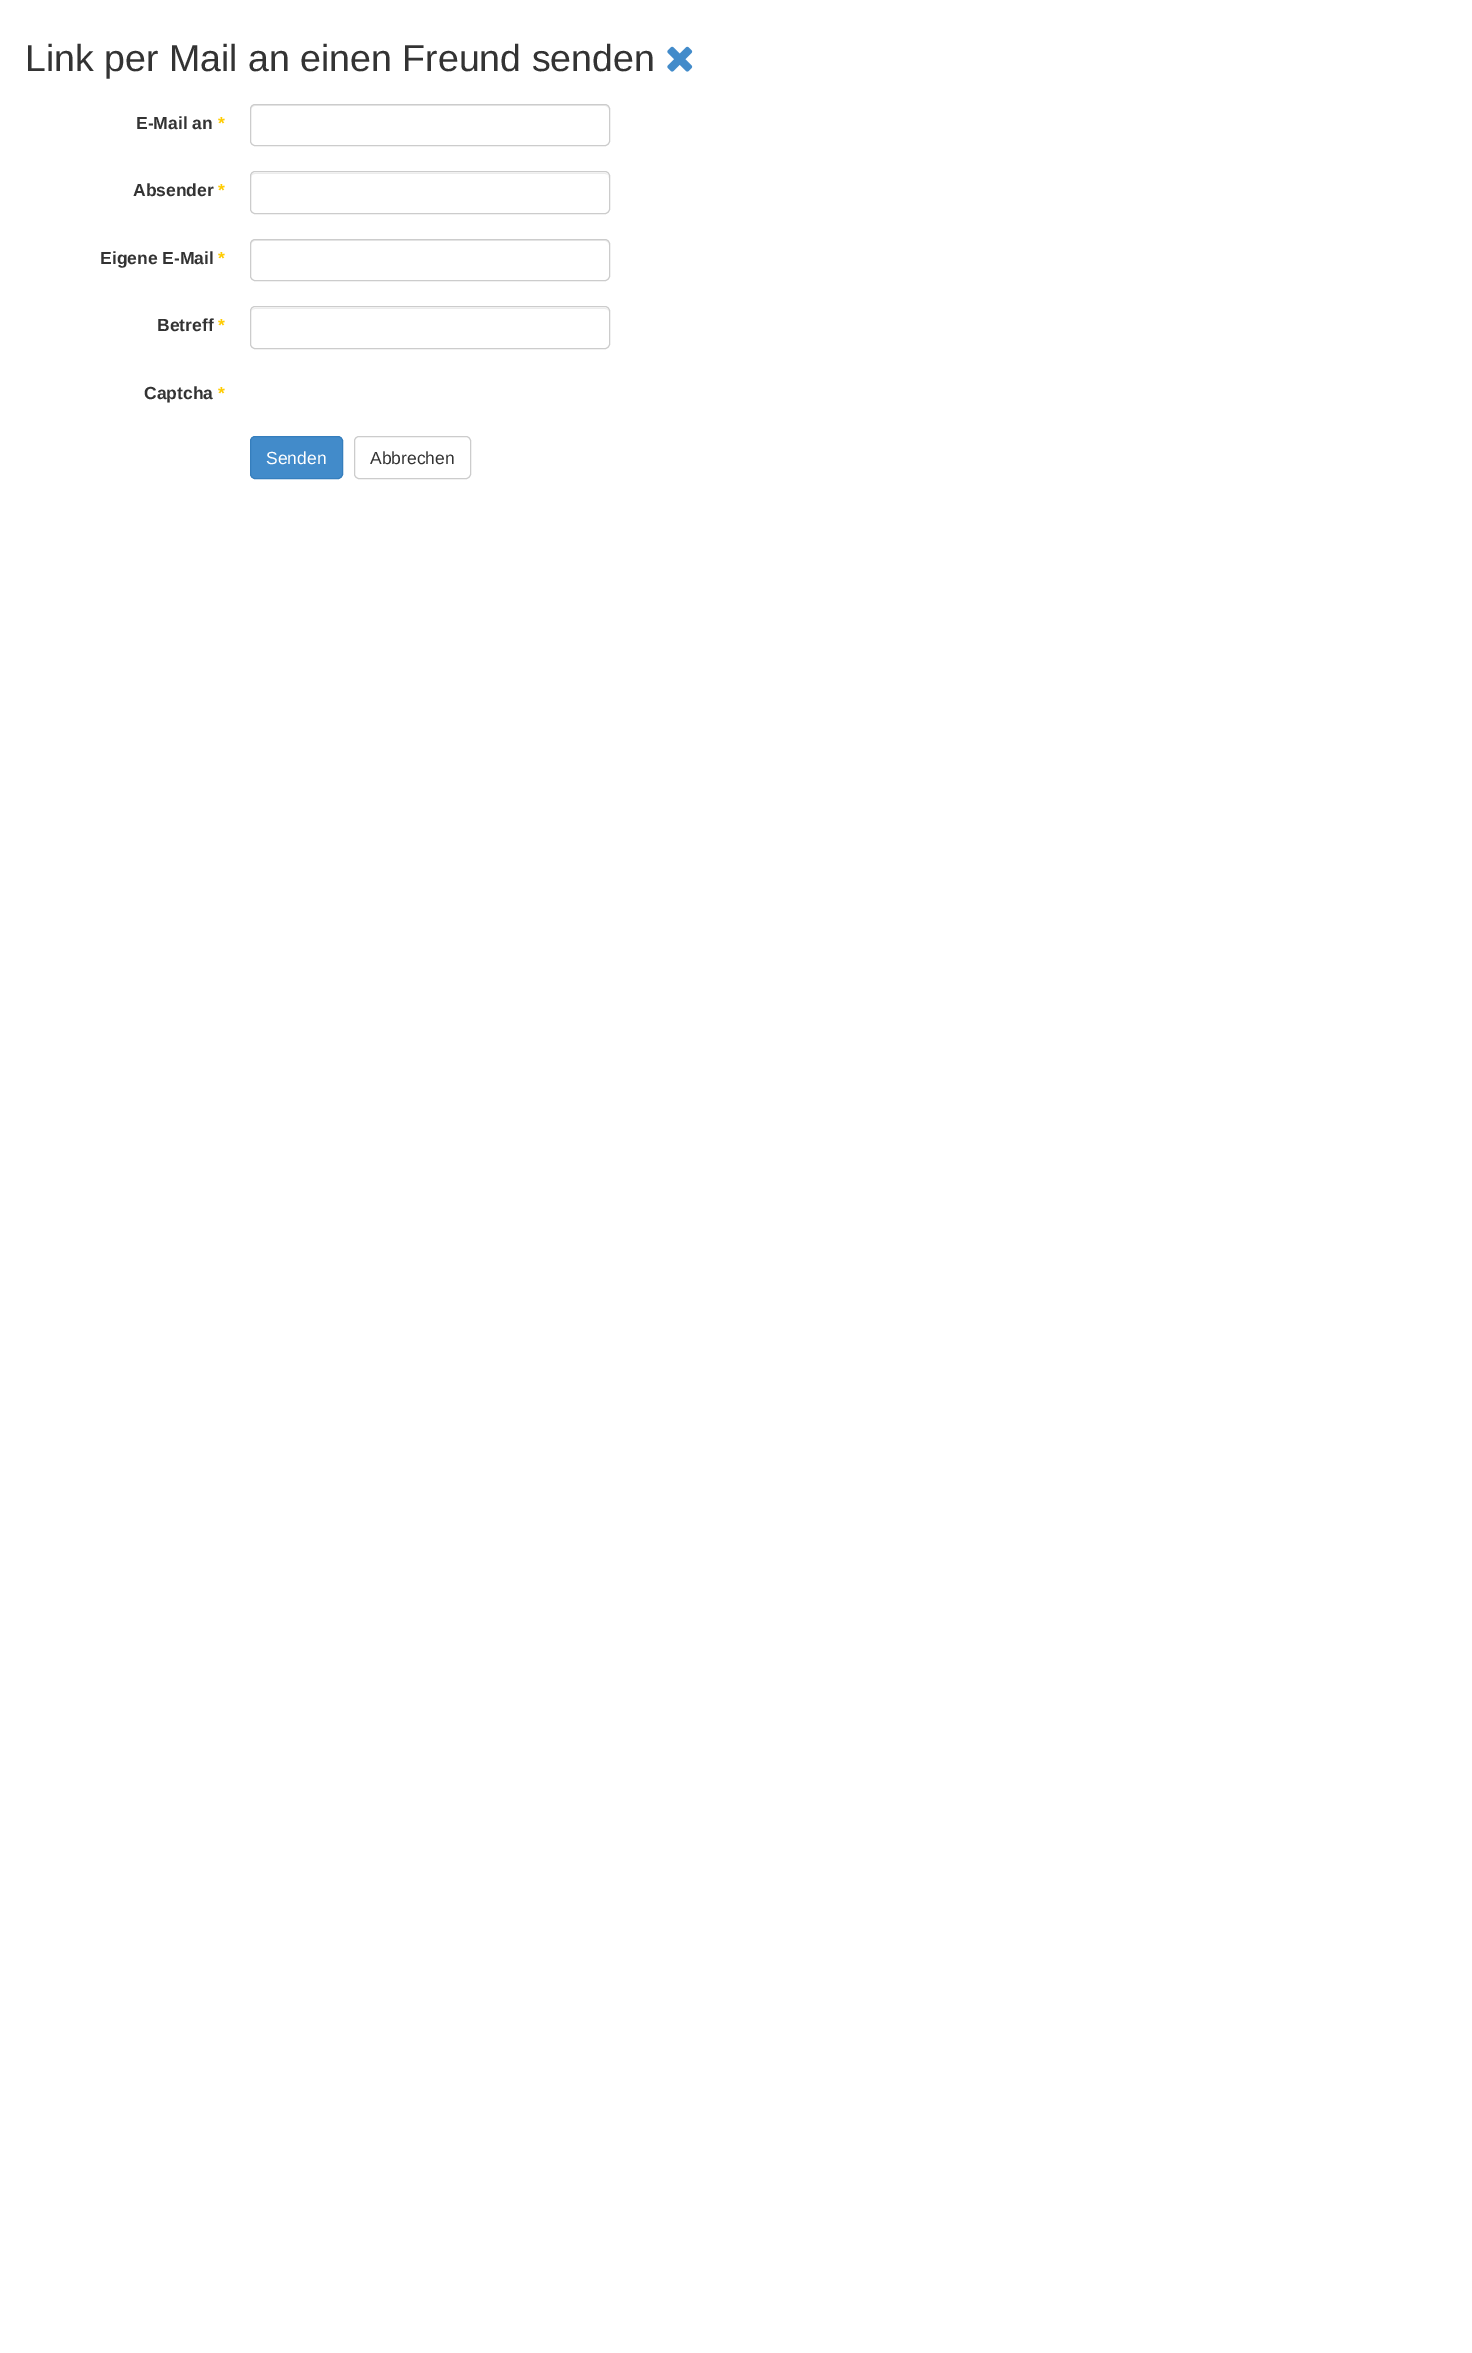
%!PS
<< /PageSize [1472 2353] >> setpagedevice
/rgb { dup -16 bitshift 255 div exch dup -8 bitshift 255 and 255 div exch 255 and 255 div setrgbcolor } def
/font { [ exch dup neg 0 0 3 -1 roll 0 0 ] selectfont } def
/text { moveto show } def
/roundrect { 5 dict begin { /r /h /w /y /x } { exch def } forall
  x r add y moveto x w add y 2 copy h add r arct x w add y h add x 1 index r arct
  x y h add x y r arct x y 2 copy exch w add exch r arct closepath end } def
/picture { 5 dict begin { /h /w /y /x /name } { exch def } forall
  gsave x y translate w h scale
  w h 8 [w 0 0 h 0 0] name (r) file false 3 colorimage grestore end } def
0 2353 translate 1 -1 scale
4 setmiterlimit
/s1 { /LiberationSans-Regular 37.5 font 16#333333 rgb } def
/s2 { /LiberationSans-Bold 17.5 font 16#333333 rgb } def
/s3 { /LiberationSans-Bold 17.5 font 16#FFCC00 rgb } def
/s4 { /LiberationSans-Regular 17.5 font 16#FFFFFF rgb } def
/s5 { /LiberationSans-Regular 17.5 font 16#333333 rgb } def
16#FFFFFF rgb
0 0 1472 2353 rectfill
s1
(Link per Mail an einen Freund senden) 25 71 text
(pic1.raw) 667 46 26 26 picture
s2
(E-Mail an) 136 129 text
s3
(*) 218 129 text
16#ECECEC rgb
255 106 moveto 605 106 lineto 607 106 609 108 609 110 curveto 608 107 lineto 606 105 lineto 255 105 lineto 252 105 251 107 251 110 curveto 251 108 253 106 255 106 curveto closepath fill
16#CCCCCC rgb
250.5 104.5 359 41 4.5 roundrect stroke
s2
(Absender) 133 196 text
s3
(*) 218 196 text
16#ECECEC rgb
255 174 moveto 605 174 lineto 607 174 609 175 609 178 curveto 608 175 lineto 606 173 lineto 255 173 lineto 252 173 251 175 251 178 curveto 251 175 253 174 255 174 curveto closepath fill
16#CCCCCC rgb
250.5 171.5 359 42 4.5 roundrect stroke
s2
(Eigene E-Mail) 100 264 text
s3
(*) 218 264 text
16#ECECEC rgb
255 241 moveto 605 241 lineto 607 241 609 243 609 245 curveto 608 242 lineto 606 240 lineto 255 240 lineto 252 240 251 242 251 245 curveto 251 243 253 241 255 241 curveto closepath fill
16#CCCCCC rgb
250.5 239.5 359 41 4.5 roundrect stroke
s2
(Betreff) 157 331 text
s3
(*) 218 331 text
16#ECECEC rgb
255 309 moveto 605 309 lineto 607 309 609 310 609 312 curveto 609 310 607 308 605 308 curveto 255 308 lineto 253 308 251 310 251 312 curveto 251 310 253 309 255 309 curveto closepath fill
16#CCCCCC rgb
250.5 306.5 359 42 4.5 roundrect stroke
s2
(Captcha) 144 399 text
s3
(*) 218 399 text
16#428BCA rgb
250.5 436.5 92 42 4.5 roundrect gsave fill grestore
16#357EBD rgb
stroke
s4
(Senden) 266 464 text
16#CCCCCC rgb
354.5 436.5 116 42 4.5 roundrect stroke
s5
(Abbrechen) 370 464 text
showpage
